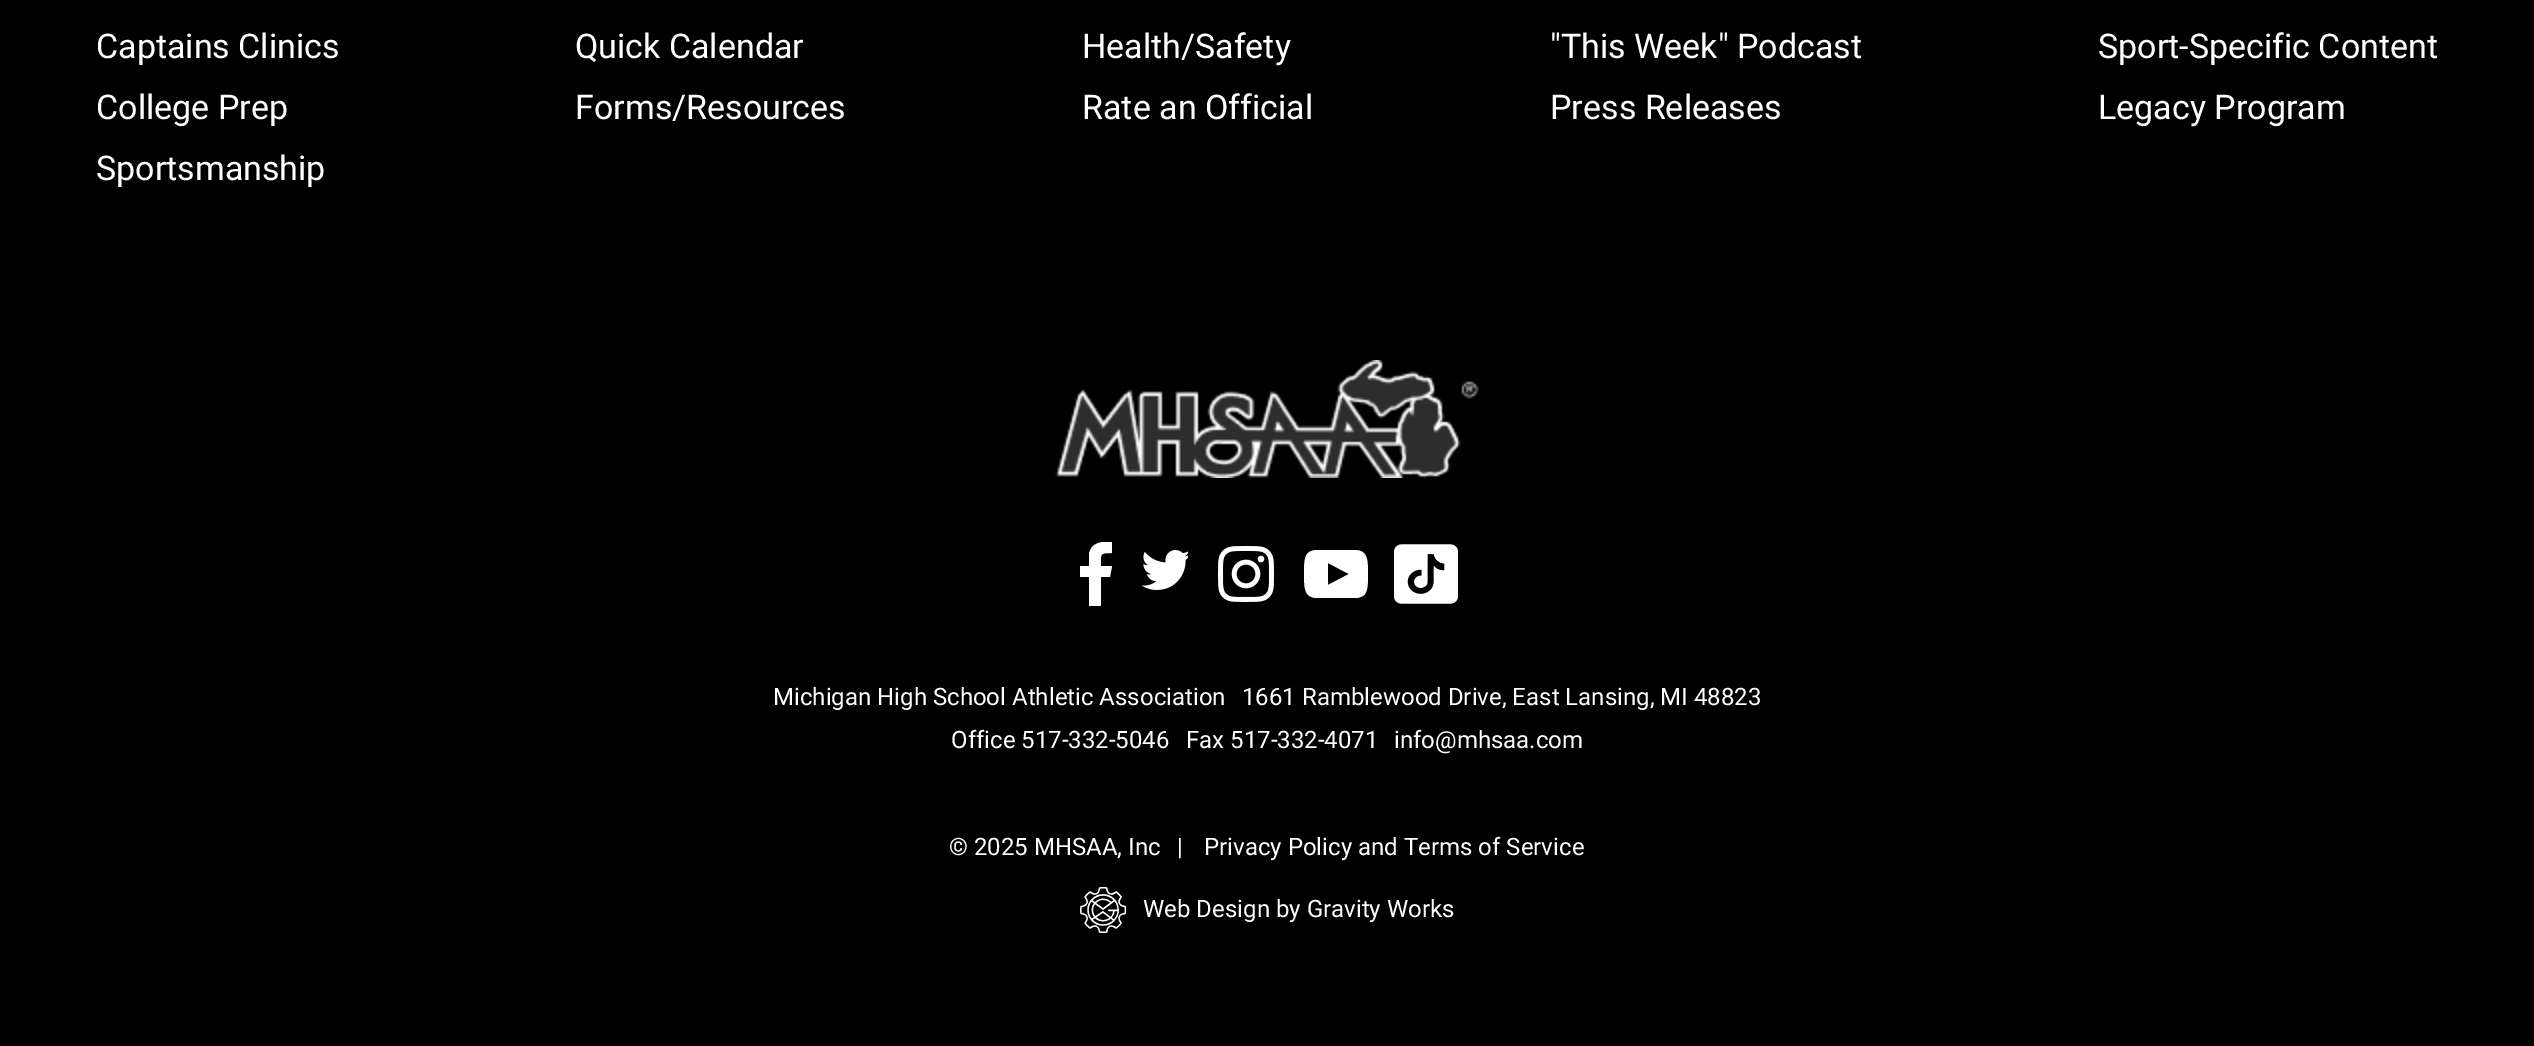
%!PS
<< /PageSize [2534 1046] >> setpagedevice
/rgb { dup -16 bitshift 255 div exch dup -8 bitshift 255 and 255 div exch 255 and 255 div setrgbcolor } def
/font { [ exch dup neg 0 0 3 -1 roll 0 0 ] selectfont } def
/text { moveto show } def
/picture { 5 dict begin { /h /w /y /x /name } { exch def } forall
  gsave x y translate w h scale
  w h 8 [w 0 0 h 0 0] name (r) file false 3 colorimage grestore end } def
0 1046 translate 1 -1 scale
4 setmiterlimit
/s1 { /Roboto-Regular 34 font 16#FFFFFF rgb } def
/s2 { /Roboto-Regular 24 font 16#FFFFFF rgb } def
16#000000 rgb
0 0 2534 1046 rectfill
s1
(Captains Clinics) 96 58 text
(College Prep) 96 119 text
(Sportsmanship) 96 180 text
(Quick Calendar) 575 58 text
(Forms/Resources) 575 119 text
(Health/Safety) 1082 58 text
(Rate an Official) 1082 119 text
("This Week" Podcast) 1550 58 text
(Press Releases) 1550 119 text
(Sport-Specific Content) 2098 58 text
(Legacy Program) 2098 119 text
(pic1.raw) 1055 360 424 118 picture
gsave
1078 542 36 64 rectclip
1089 606 moveto 1089 577 lineto 1080 577 lineto 1080 566 lineto 1089 566 lineto 1089 554 lineto 1091 542 1103 541 1112 542 curveto 1112 553 lineto 1099 553 1101 554 1101 566 curveto 1112 566 lineto 1110 577 lineto 1101 577 lineto 1101 606 lineto fill
grestore
(pic2.raw) 1141 550 47 40 picture
(pic3.raw) 1218 546 56 56 picture
1356 550 moveto 1347 550 1325 550 1316 550 curveto 1305 551 1304 557 1304 574 curveto 1304 590 1305 597 1316 598 curveto 1325 598 1347 598 1356 598 curveto 1367 597 1368 591 1368 574 curveto 1368 558 1367 551 1356 550 curveto closepath 1328 585 moveto 1328 563 lineto 1349 574 lineto closepath fill
(pic4.raw) 1394 544 64 60 picture
s2
(Michigan High School Athletic Association) 773 705 text
(1661 Ramblewood Drive, East Lansing, MI 48823) 1242 705 text
(Office 517-332-5046) 951 748 text
(Fax 517-332-4071) 1186 748 text
(info@mhsaa.com) 1394 748 text
(© 2025 MHSAA, Inc) 949 855 text
(|) 1177 855 text
(Privacy Policy and Terms of Service) 1204 855 text
(pic5.raw) 1080 887 47 46 picture
(Web Design by Gravity Works) 1143 917 text
showpage
